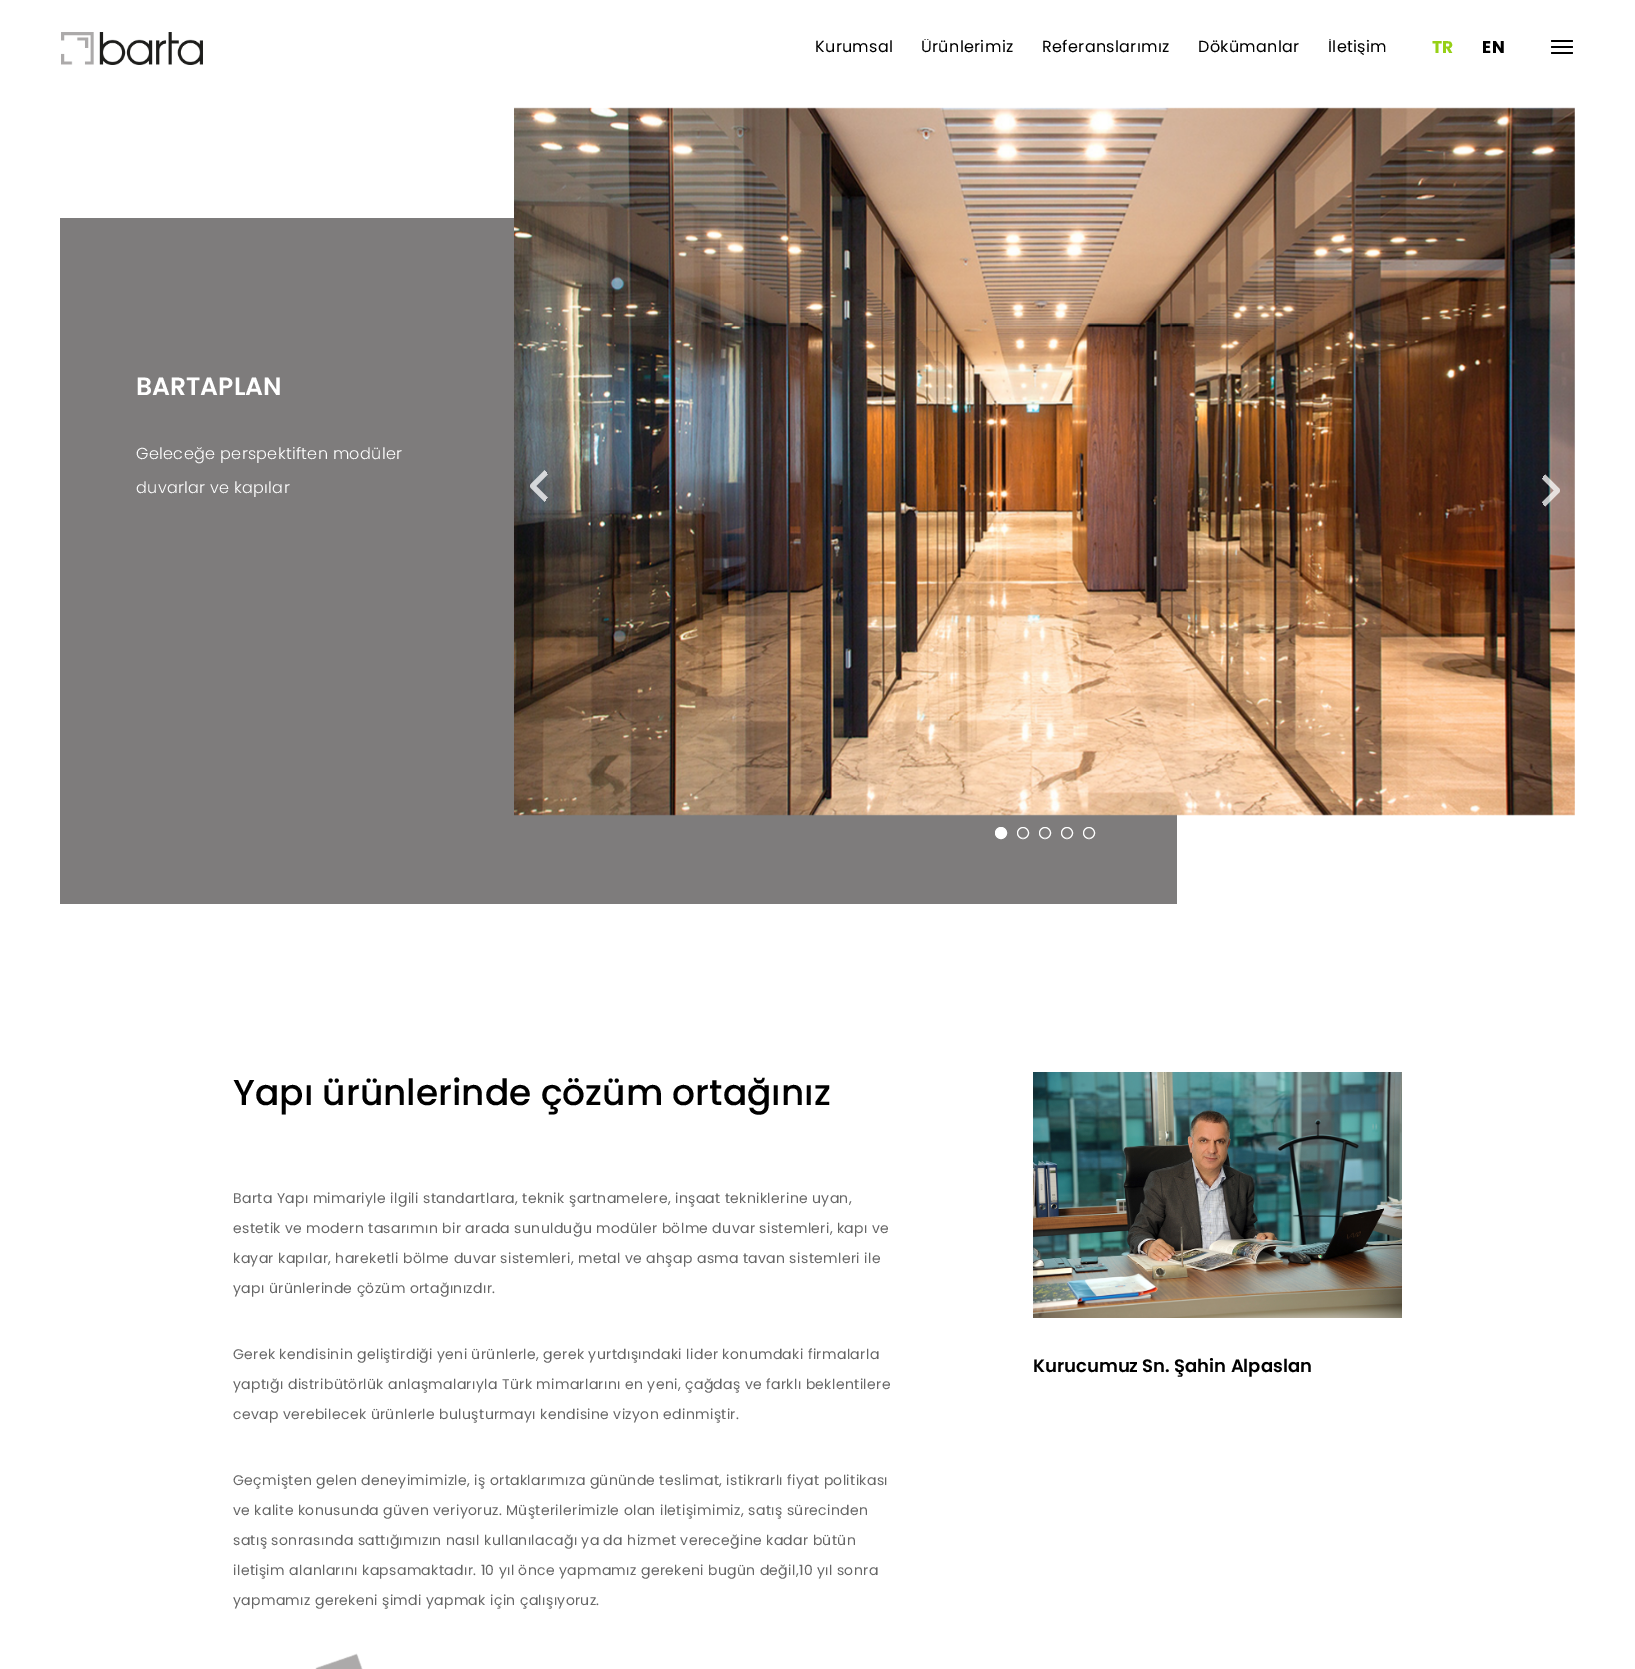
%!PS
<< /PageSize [1635 1669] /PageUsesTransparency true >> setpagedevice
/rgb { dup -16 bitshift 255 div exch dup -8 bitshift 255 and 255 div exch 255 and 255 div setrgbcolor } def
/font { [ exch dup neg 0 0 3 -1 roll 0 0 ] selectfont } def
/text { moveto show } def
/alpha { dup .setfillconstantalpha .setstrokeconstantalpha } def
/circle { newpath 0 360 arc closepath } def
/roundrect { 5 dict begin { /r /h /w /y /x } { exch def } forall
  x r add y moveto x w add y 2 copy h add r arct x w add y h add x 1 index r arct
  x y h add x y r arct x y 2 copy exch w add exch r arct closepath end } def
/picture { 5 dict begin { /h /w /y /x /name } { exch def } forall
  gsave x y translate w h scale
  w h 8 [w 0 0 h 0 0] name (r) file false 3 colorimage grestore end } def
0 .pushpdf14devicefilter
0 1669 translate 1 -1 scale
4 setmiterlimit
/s1 { /Poppins-SemiBold 25 font 16#FFFFFF rgb } def
/s2 { /LiberationSerif-Regular 6 font 16#BFBEBE rgb } def
/s3 { /Poppins-Medium 36 font 16#000000 rgb } def
/s4 { /Poppins-SemiBold 18 font 16#000000 rgb } def
16#FFFFFF rgb
0 0 1635 1669 rectfill
(pic1.raw) 61 32 142 33 picture
/Poppins-Regular 16 font
16#000000 rgb
815 52 moveto 0.35 0 (Kurumsal) ashow
gsave
815 39 572 16 rectclip
921 52 moveto 0.35 0 (Ürünlerimiz) ashow
grestore
1042 52 moveto 0.35 0 (Referanslarımız) ashow
1198 52 moveto 0.35 0 (Dökümanlar) ashow
gsave
815 39 572 16 rectclip
1328 52 moveto 0.35 0 (İletişim) ashow
grestore
/Poppins-Bold 17 font
16#96D016 rgb
1432 53 moveto 0.35 0 (TR) ashow
16#000000 rgb
1482 53 moveto 0.35 0 (EN) ashow
1551 40 22 2 1 roundrect fill
1551 46 22 2 1 roundrect fill
1551 52 22 2 1 roundrect fill
16#7E7C7C rgb
60 218 1117 686 rectfill
s1
(BARTAPLAN) 136 395 text
/Poppins-Light 16 font
136 459 moveto 0.35 0 (Geleceğe perspektiften modüler) ashow
136 493 moveto 0.35 0 (duvarlar ve kapılar) ashow
(pic2.raw) 514 107 1061 709 picture
gsave
539.5 503.5 moveto 534 503.5 529.5 495.5 529.5 486 curveto 529.5 476 534 468.5 539.5 468.5 curveto 545 468.5 549.5 476 549.5 486 curveto 549.5 495.5 545 503.5 539.5 503.5 curveto closepath clip newpath
0.75 alpha
5 setlinewidth
1 setlinecap
1 setlinejoin
547.5 501 moveto 532.5 486 lineto 547.5 471 lineto stroke
grestore
gsave
1550 473 moveto 1555.5 473 1560 481 1560 490.5 curveto 1560 500 1555.5 508 1550 508 curveto 1544.5 508 1540 500 1540 490.5 curveto 1540 481 1544.5 473 1550 473 curveto closepath clip newpath
0.75 alpha
5 setlinewidth
1 setlinecap
1 setlinejoin
1542.5 475.5 moveto 1557.5 490.5 lineto 1542.5 505.5 lineto stroke
grestore
1001 833 5.5 circle gsave fill grestore
stroke
1023 833 5.5 circle stroke
s2
(•) 1022 840 text
16#FFFFFF rgb
1045 833 5.5 circle stroke
s2
(•) 1044 840 text
16#FFFFFF rgb
1067 833 5.5 circle stroke
s2
(•) 1066 840 text
16#FFFFFF rgb
1089 833 5.5 circle stroke
s2
(•) 1088 840 text
s3
(Yapı ürünlerinde çözüm ortağınız) 233 1105 text
/Poppins-Regular 14 font
16#666666 rgb
233 1203 moveto 0.35 0 (Barta Yapı mimariyle ilgili standartlara, teknik şartnamelere, inşaat tekniklerine uyan,) ashow
233 1233 moveto 0.35 0 (estetik ve modern tasarımın bir arada sunulduğu modüler bölme duvar sistemleri, kapı ve) ashow
233 1263 moveto 0.35 0 (kayar kapılar, hareketli bölme duvar sistemleri, metal ve ahşap asma tavan sistemleri ile) ashow
233 1293 moveto 0.35 0 (yapı ürünlerinde çözüm ortağınızdır.) ashow
233 1359 moveto 0.35 0 (Gerek kendisinin geliştirdiği yeni ürünlerle, gerek yurtdışındaki lider konumdaki firmalarla) ashow
233 1389 moveto 0.35 0 (yaptığı distribütörlük anlaşmalarıyla Türk mimarlarını en yeni, çağdaş ve farklı beklentilere) ashow
233 1419 moveto 0.35 0 (cevap verebilecek ürünlerle buluşturmayı kendisine vizyon edinmiştir.) ashow
233 1485 moveto 0.35 0 (Geçmişten gelen deneyimimizle, iş ortaklarımıza gününde teslimat, istikrarlı fiyat politikası) ashow
233 1515 moveto 0.35 0 (ve kalite konusunda güven veriyoruz. Müşterilerimizle olan iletişimimiz, satış sürecinden) ashow
233 1545 moveto 0.35 0 (satış sonrasında sattığımızın nasıl kullanılacağı ya da hizmet vereceğine kadar bütün) ashow
233 1575 moveto 0.35 0 (iletişim alanlarını kapsamaktadır. 10 yıl önce yapmamız gerekeni bugün değil,10 yıl sonra) ashow
233 1605 moveto 0.35 0 (yapmamız gerekeni şimdi yapmak için çalışıyoruz.) ashow
(pic3.raw) 315 1653 48 16 picture
(pic4.raw) 1033 1072 369 246 picture
s4
(Kurucumuz Sn. Şahin Alpaslan) 1033 1372 text
.poppdf14devicefilter showpage
